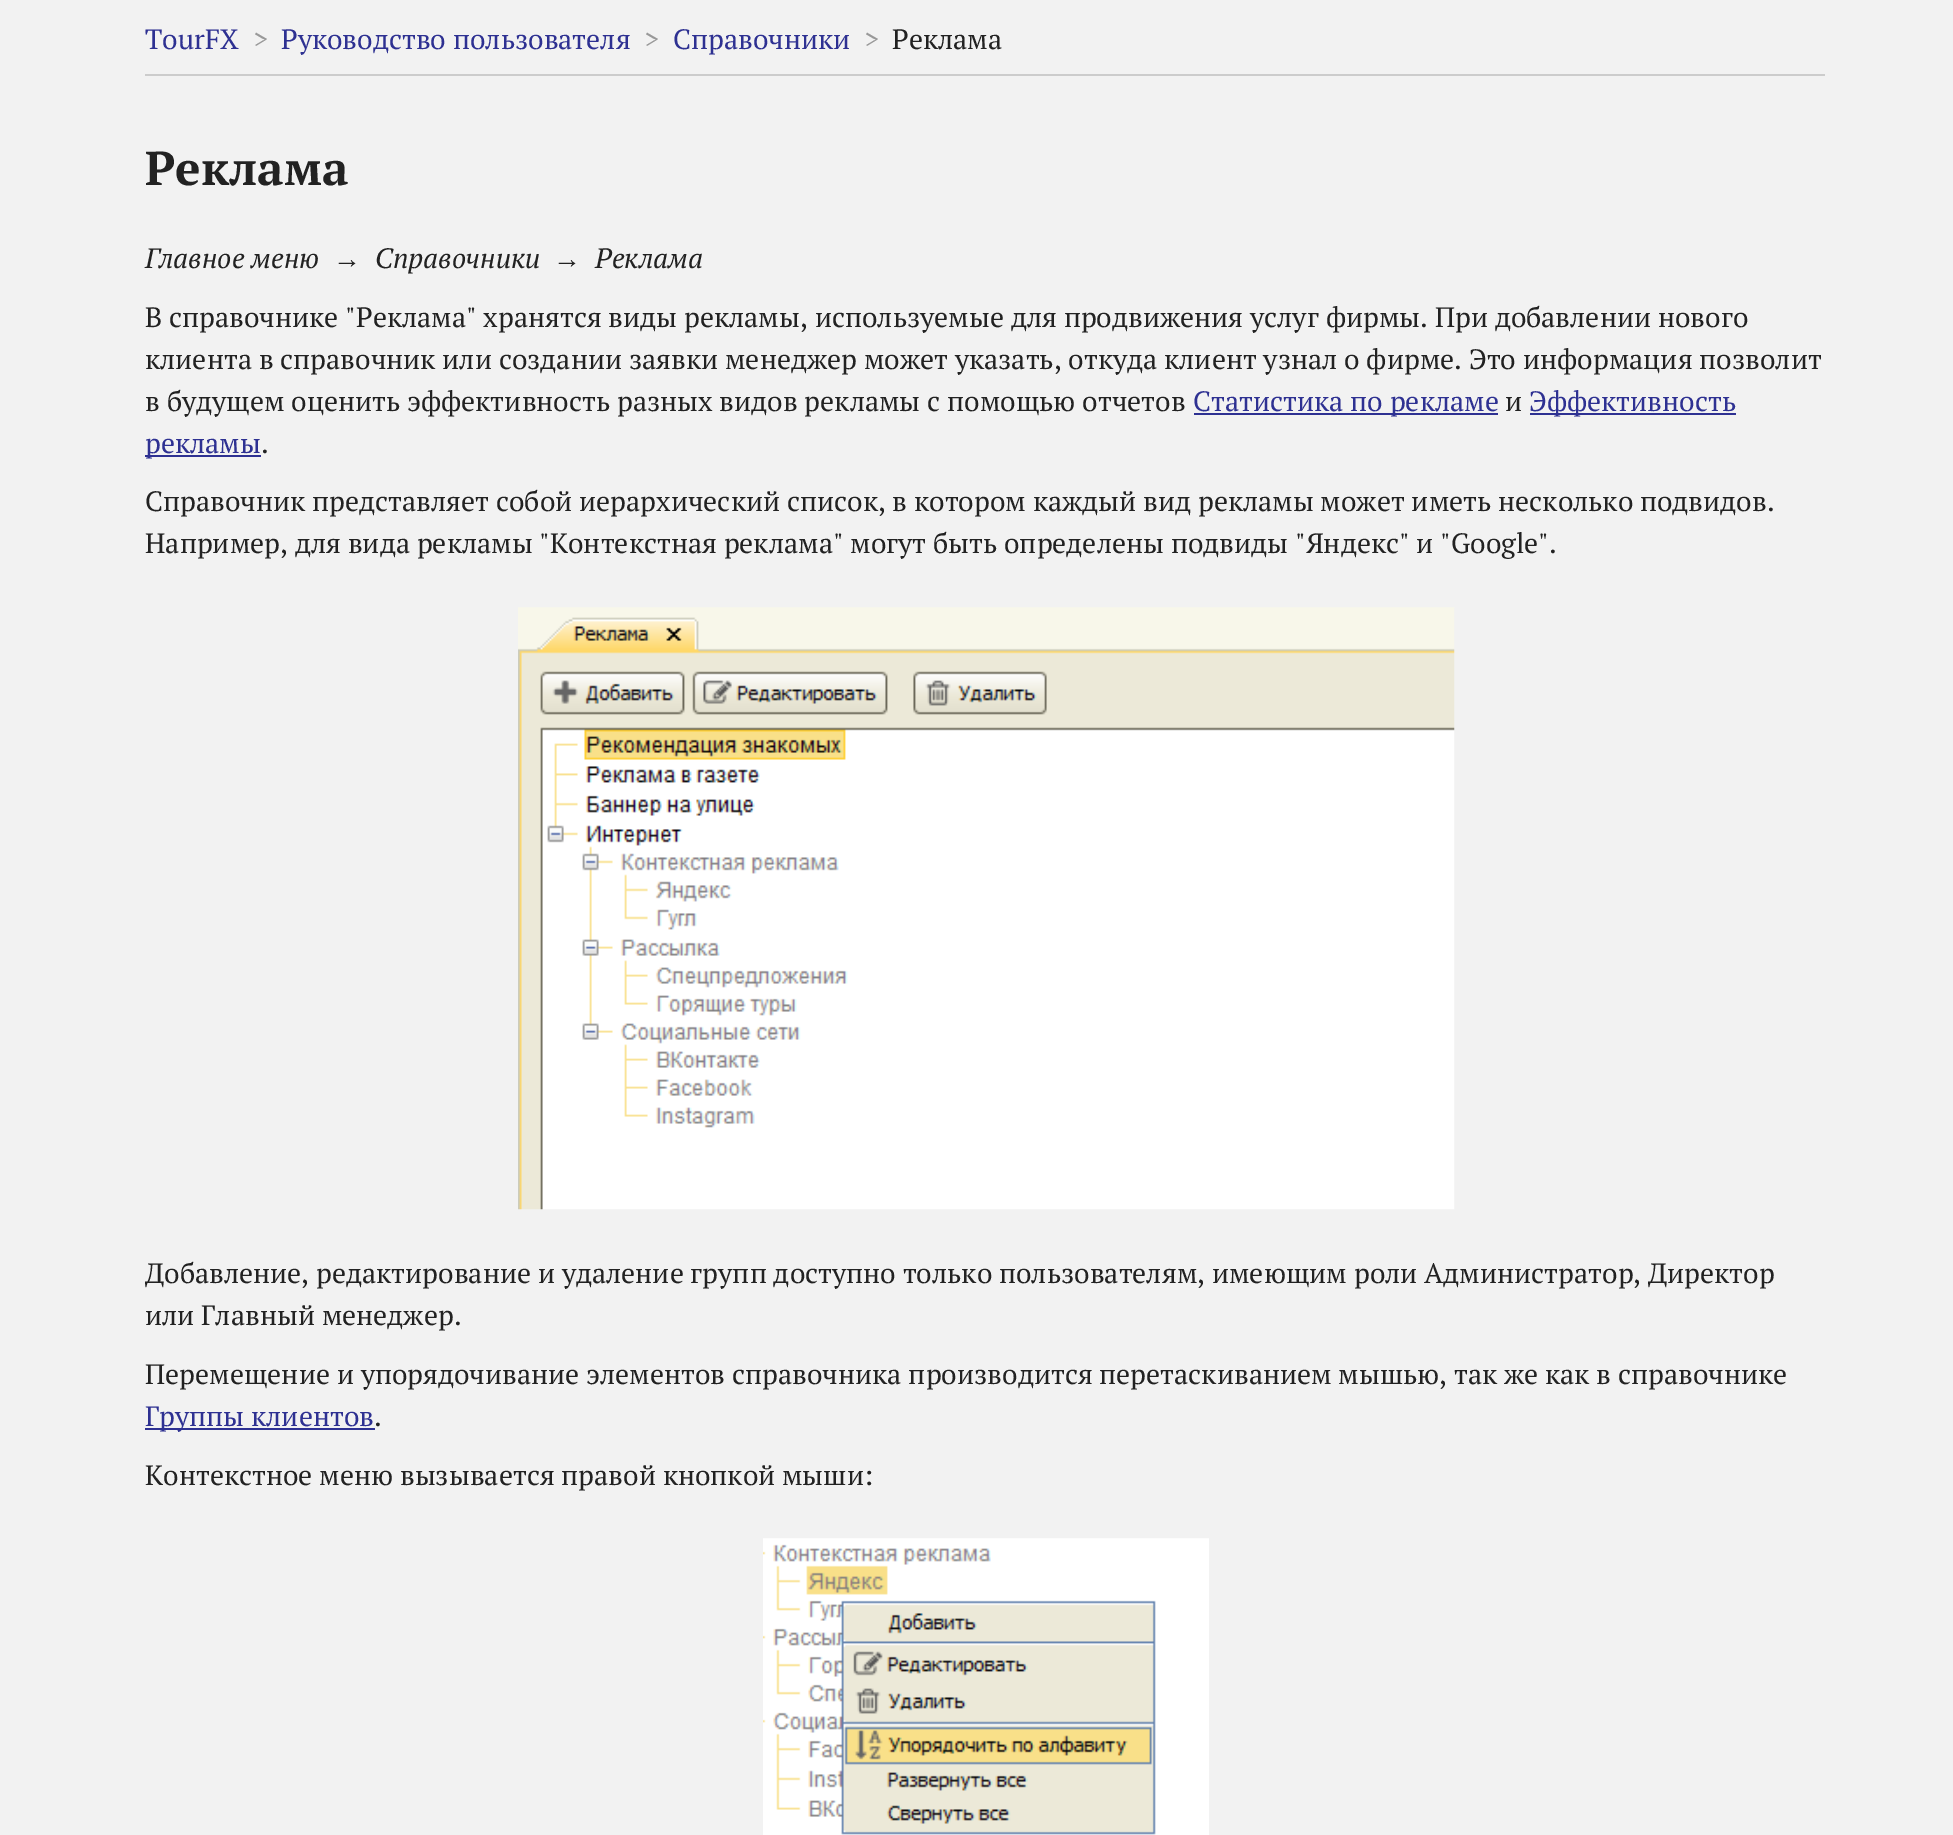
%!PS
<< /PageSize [1953 1835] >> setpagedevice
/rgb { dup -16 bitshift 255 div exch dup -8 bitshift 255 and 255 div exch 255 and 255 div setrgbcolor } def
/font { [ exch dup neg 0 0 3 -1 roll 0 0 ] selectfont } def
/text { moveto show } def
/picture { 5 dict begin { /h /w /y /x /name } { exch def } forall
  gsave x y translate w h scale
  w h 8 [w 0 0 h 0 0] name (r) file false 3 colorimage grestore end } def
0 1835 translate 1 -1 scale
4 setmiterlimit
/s1 { /PTSerif-Regular 28 font 16#2E3192 rgb } def
/s2 { /PTSerif-Regular 28 font 16#999999 rgb } def
/s3 { /PTSerif-Regular 28 font 16#222222 rgb } def
/s4 { /PTSerif-Bold 47.5 font 16#222222 rgb } def
/s5 { /PTSerif-Italic 28 font 16#222222 rgb } def
/s6 { /LiberationSerif-Italic 28 font 16#222222 rgb } def
16#F2F2F2 rgb
0 0 1953 1835 rectfill
s1
(TourFX) 145 49 text
s2
(>) 253 49 text
s1
(Руководство пользователя) 281 49 text
s2
(>) 644 49 text
s1
(Справочники) 673 49 text
s2
(>) 864 49 text
s3
(Реклама) 892 49 text
16#CCCCCC rgb
145 74 1680 2 rectfill
s4
(Реклама) 145 185 text
s5
(Главное меню) 145 268 text
s6
(→) 333 268 text
s5
(Справочники) 375 268 text
s6
(→) 553 268 text
s5
(Реклама) 595 268 text
s3
(В справочнике "Реклама" хранятся виды рекламы, используемые для продвижения услуг фирмы. При добавлении нового) 145 327 text
(клиента в справочник или создании заявки менеджер может указать, откуда клиент узнал о фирме. Это информация позволит) 145 369 text
(в будущем оценить эффективность разных видов рекламы с помощью отчетов) 145 411 text
16#2E3192 rgb
1194 413 304 2 rectfill
(Статистика по рекламе) 1193 411 text
s3
(и) 1505 411 text
16#2E3192 rgb
1530 413 206 2 rectfill
(Эффективность) 1529 411 text
145 455 116 2 rectfill
(рекламы) 145 453 text
s3
(.) 261 453 text
(Справочник представляет собой иерархический список, в котором каждый вид рекламы может иметь несколько подвидов.) 145 511 text
(Например, для вида рекламы "Контекстная реклама" могут быть определены подвиды "Яндекс" и "Google".) 145 553 text
(pic1.raw) 518 607 937 603 picture
(Добавление, редактирование и удаление групп доступно только пользователям, имеющим роли Администратор, Директор) 145 1283 text
(или Главный менеджер.) 145 1325 text
(Перемещение и упорядочивание элементов справочника производится перетаскиванием мышью, так же как в справочнике) 145 1384 text
16#2E3192 rgb
145 1428 230 2 rectfill
(Группы клиентов) 145 1426 text
s3
(.) 374 1426 text
(Контекстное меню вызывается правой кнопкой мыши:) 145 1485 text
(pic2.raw) 763 1538 446 297 picture
showpage
